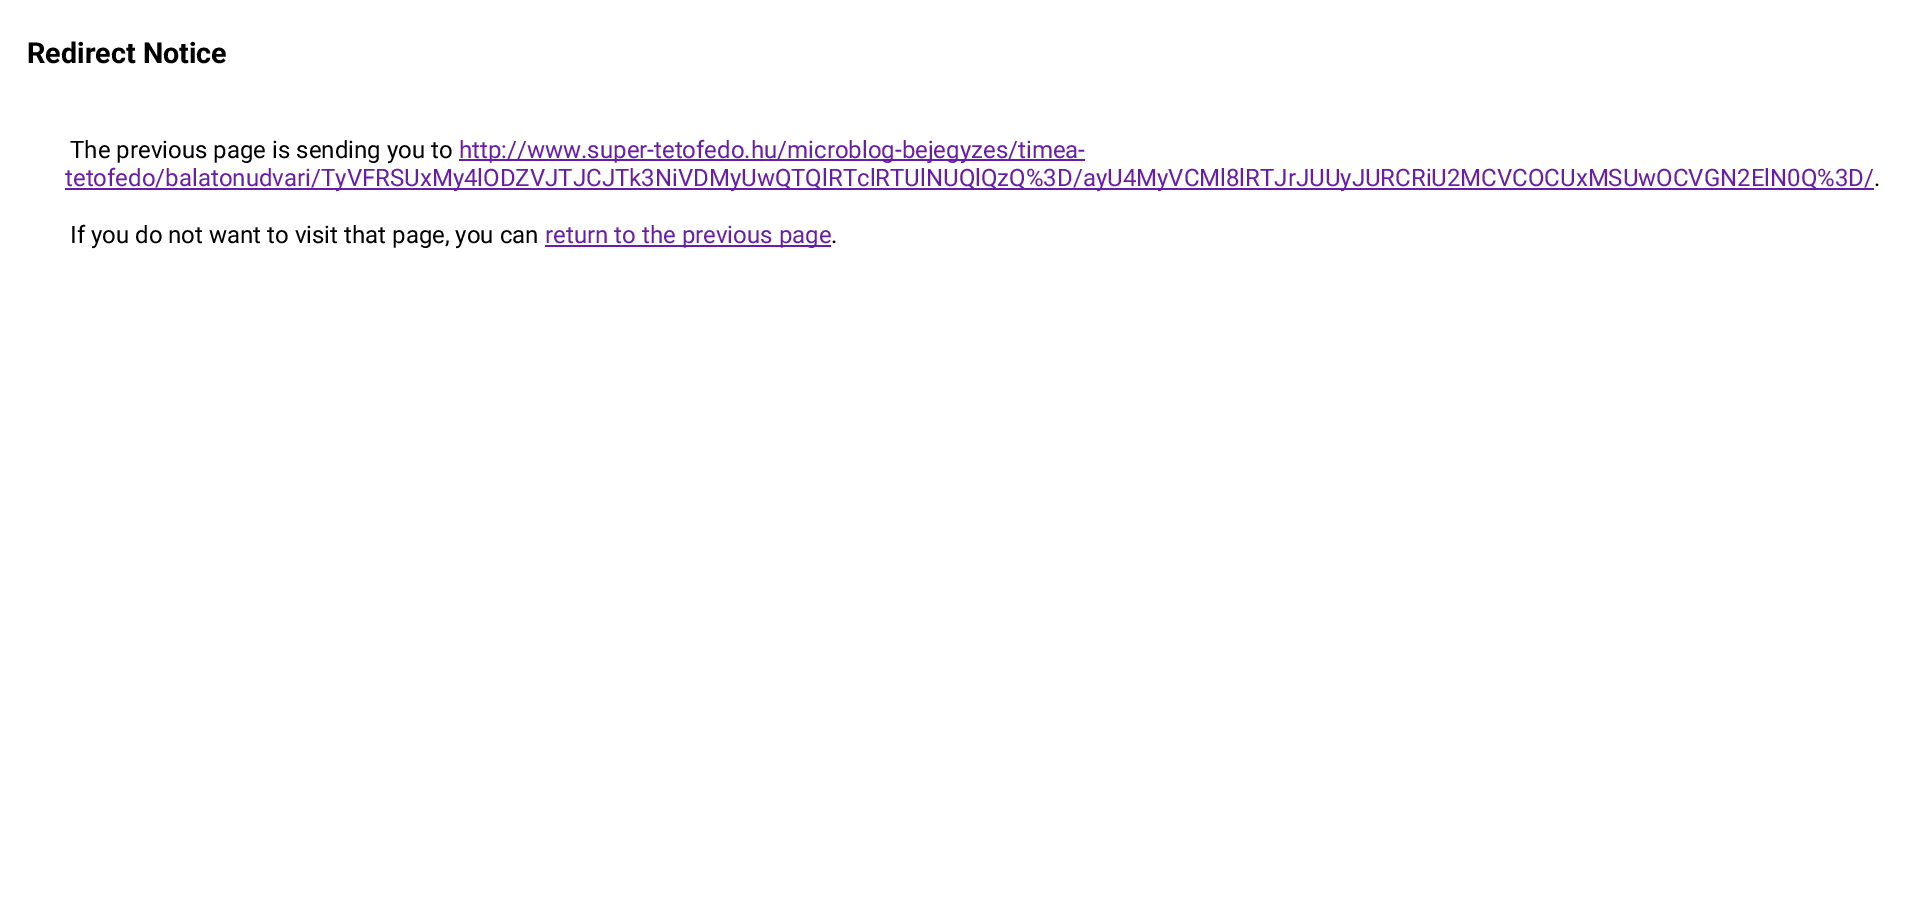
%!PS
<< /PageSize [1922 920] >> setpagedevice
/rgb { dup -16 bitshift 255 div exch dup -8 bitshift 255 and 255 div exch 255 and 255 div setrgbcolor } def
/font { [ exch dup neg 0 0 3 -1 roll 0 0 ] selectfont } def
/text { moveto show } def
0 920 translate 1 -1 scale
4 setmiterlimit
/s1 { /Roboto-Bold 28.75 font 16#000000 rgb } def
/s2 { /Roboto-Regular 24 font 16#000000 rgb } def
/s3 { /Roboto-Regular 24 font 16#681DA8 rgb } def
16#FFFFFF rgb
0 0 1922 920 rectfill
s1
(Redirect Notice) 27 63 text
s2
(The previous page is sending you to) 70 158 text
16#681DA8 rgb
459 159 626 2 rectfill
(http://www.super-tetofedo.hu/microblog-bejegyzes/timea-) 459 158 text
65 188 1809 2 rectfill
(tetofedo/balatonudvari/TyVFRSUxMy4lODZVJTJCJTk3NiVDMyUwQTQlRTclRTUlNUQlQzQ%3D/ayU4MyVCMl8lRTJrJUUyJURCRiU2MCVCOCUxMSUwOCVGN2ElN0Q%3D/) 65 186 text
s2
(.) 1874 186 text
(If you do not want to visit that page, you can) 70 243 text
16#681DA8 rgb
545 245 286 2 rectfill
(return to the previous page) 545 243 text
s2
(.) 831 243 text
showpage
